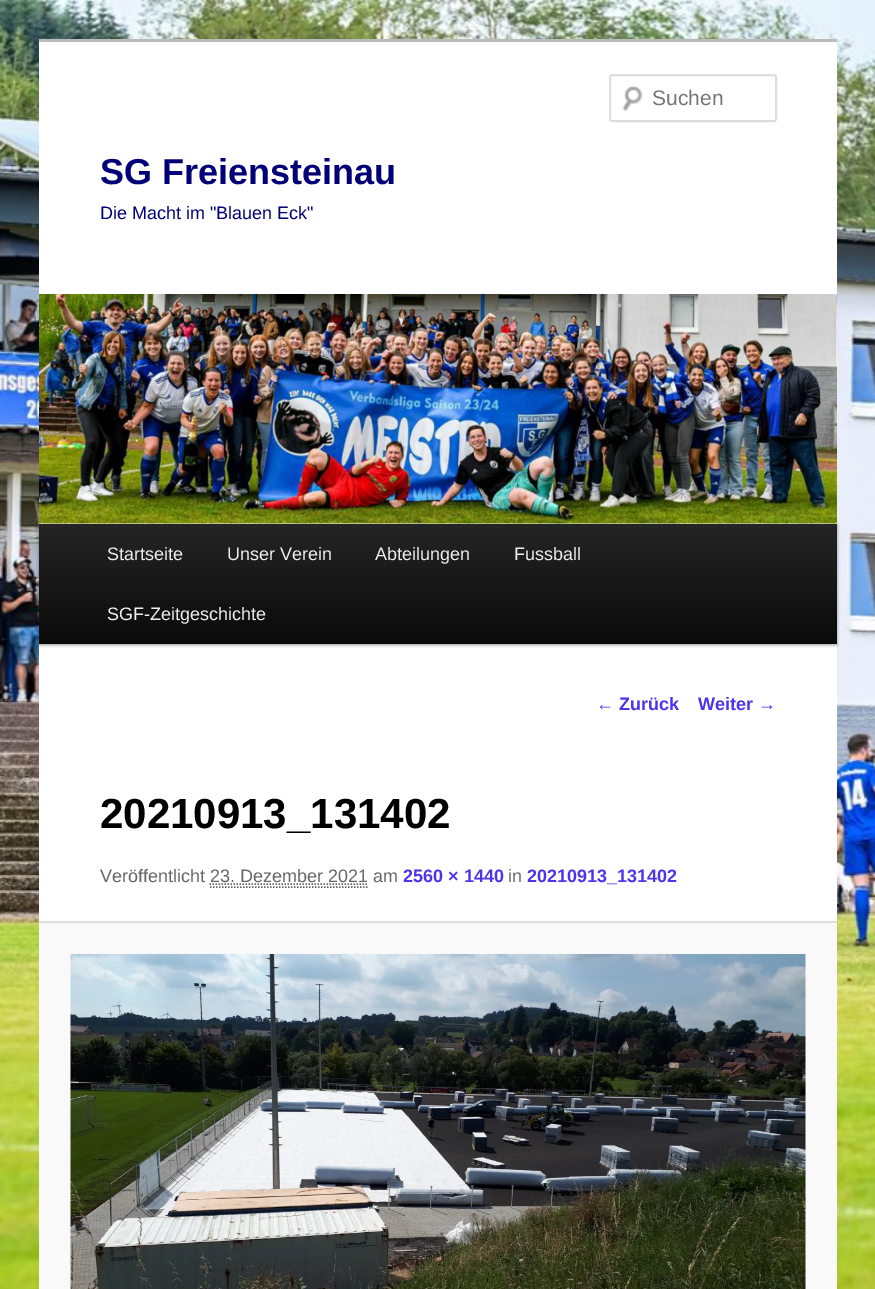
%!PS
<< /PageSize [875 1289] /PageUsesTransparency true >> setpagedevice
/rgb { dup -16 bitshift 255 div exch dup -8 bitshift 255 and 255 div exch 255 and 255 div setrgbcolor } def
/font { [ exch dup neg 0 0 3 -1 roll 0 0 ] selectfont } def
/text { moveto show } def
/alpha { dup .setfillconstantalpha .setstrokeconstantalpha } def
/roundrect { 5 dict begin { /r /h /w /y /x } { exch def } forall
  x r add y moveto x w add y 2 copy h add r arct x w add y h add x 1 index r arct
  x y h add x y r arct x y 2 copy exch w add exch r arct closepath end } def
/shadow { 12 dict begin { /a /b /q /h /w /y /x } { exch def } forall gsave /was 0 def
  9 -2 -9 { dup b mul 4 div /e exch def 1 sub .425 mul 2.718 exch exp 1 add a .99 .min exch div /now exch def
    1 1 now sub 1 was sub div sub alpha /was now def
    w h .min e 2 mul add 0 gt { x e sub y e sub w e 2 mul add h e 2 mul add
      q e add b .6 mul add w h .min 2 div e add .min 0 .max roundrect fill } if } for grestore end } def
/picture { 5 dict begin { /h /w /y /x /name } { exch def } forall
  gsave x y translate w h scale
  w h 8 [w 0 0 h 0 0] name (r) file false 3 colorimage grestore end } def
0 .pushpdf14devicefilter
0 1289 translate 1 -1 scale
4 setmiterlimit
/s1 { /LiberationSans-Regular 21 font 16#757575 rgb } def
/s2 { /LiberationSans-Bold 36 font 16#010077 rgb } def
/s3 { /LiberationSans-Regular 18 font 16#010077 rgb } def
/s4 { /LiberationSans-Regular 18 font 16#EEEEEE rgb } def
/s5 { /LiberationSans-Bold 18 font 16#4C34ED rgb } def
/s6 { /LiberationSans-Bold 42 font 16#000000 rgb } def
/s7 { /LiberationSans-Regular 18 font 16#666666 rgb } def
16#FFFFFF rgb
0 0 875 1289 rectfill
(pic1.raw) 0 0 875 1289 picture
39 42 798 879 rectfill
16#BBBBBB rgb
39 39 798 3 rectfill
(pic2.raw) 622 85 21 27 picture
16#DDDDDD rgb
2 setlinewidth
610 75 166 46 2 roundrect stroke
s1
(Suchen) 652 105 text
s2
(SG Freiensteinau) 100 184 text
s3
(Die Macht im "Blauen Eck") 100 219 text
16#000000 rgb
39 525 798 120 0 1.5 0.4 shadow
(pic3.raw) 39 294 798 230 picture
gsave 39 524 moveto 837 524 lineto 837 644 lineto 39 644 lineto closepath clip newpath
<< /ShadingType 2 /ColorSpace /DeviceRGB /Coords [438 523 438 644] /Extend [true true] /Function << /FunctionType 2 /Domain [0 1] /C0 [0.145 0.145 0.145] /C1 [0.039 0.039 0.039] /N 1 >> >> shfill grestore
s4
(Startseite) 107 560 text
(Unser Verein) 227 560 text
(Abteilungen) 375 560 text
(Fussball) 514 560 text
(SGF-Zeitgeschichte) 107 620 text
s5
(← Zurück) 596 710 text
(Weiter →) 698 710 text
s6
(20210913_131402) 100 828 text
s7
(Veröffentlicht 23. Dezember 2021 am) 100 882 text
s5
(2560 × 1440) 403 882 text
s7
(in) 508 882 text
s5
(20210913_131402) 527 882 text
16#666666 rgb
1.5 setlinewidth
[1.5 1.5] 0 setdash
209.5 884 moveto 368 884 lineto stroke
210 887 moveto 367.5 887 lineto stroke
16#F9F9F9 rgb
39 923 798 366 rectfill
16#DDDDDD rgb
39 921 798 2 rectfill
(pic4.raw) 70 954 736 335 picture
.poppdf14devicefilter showpage
